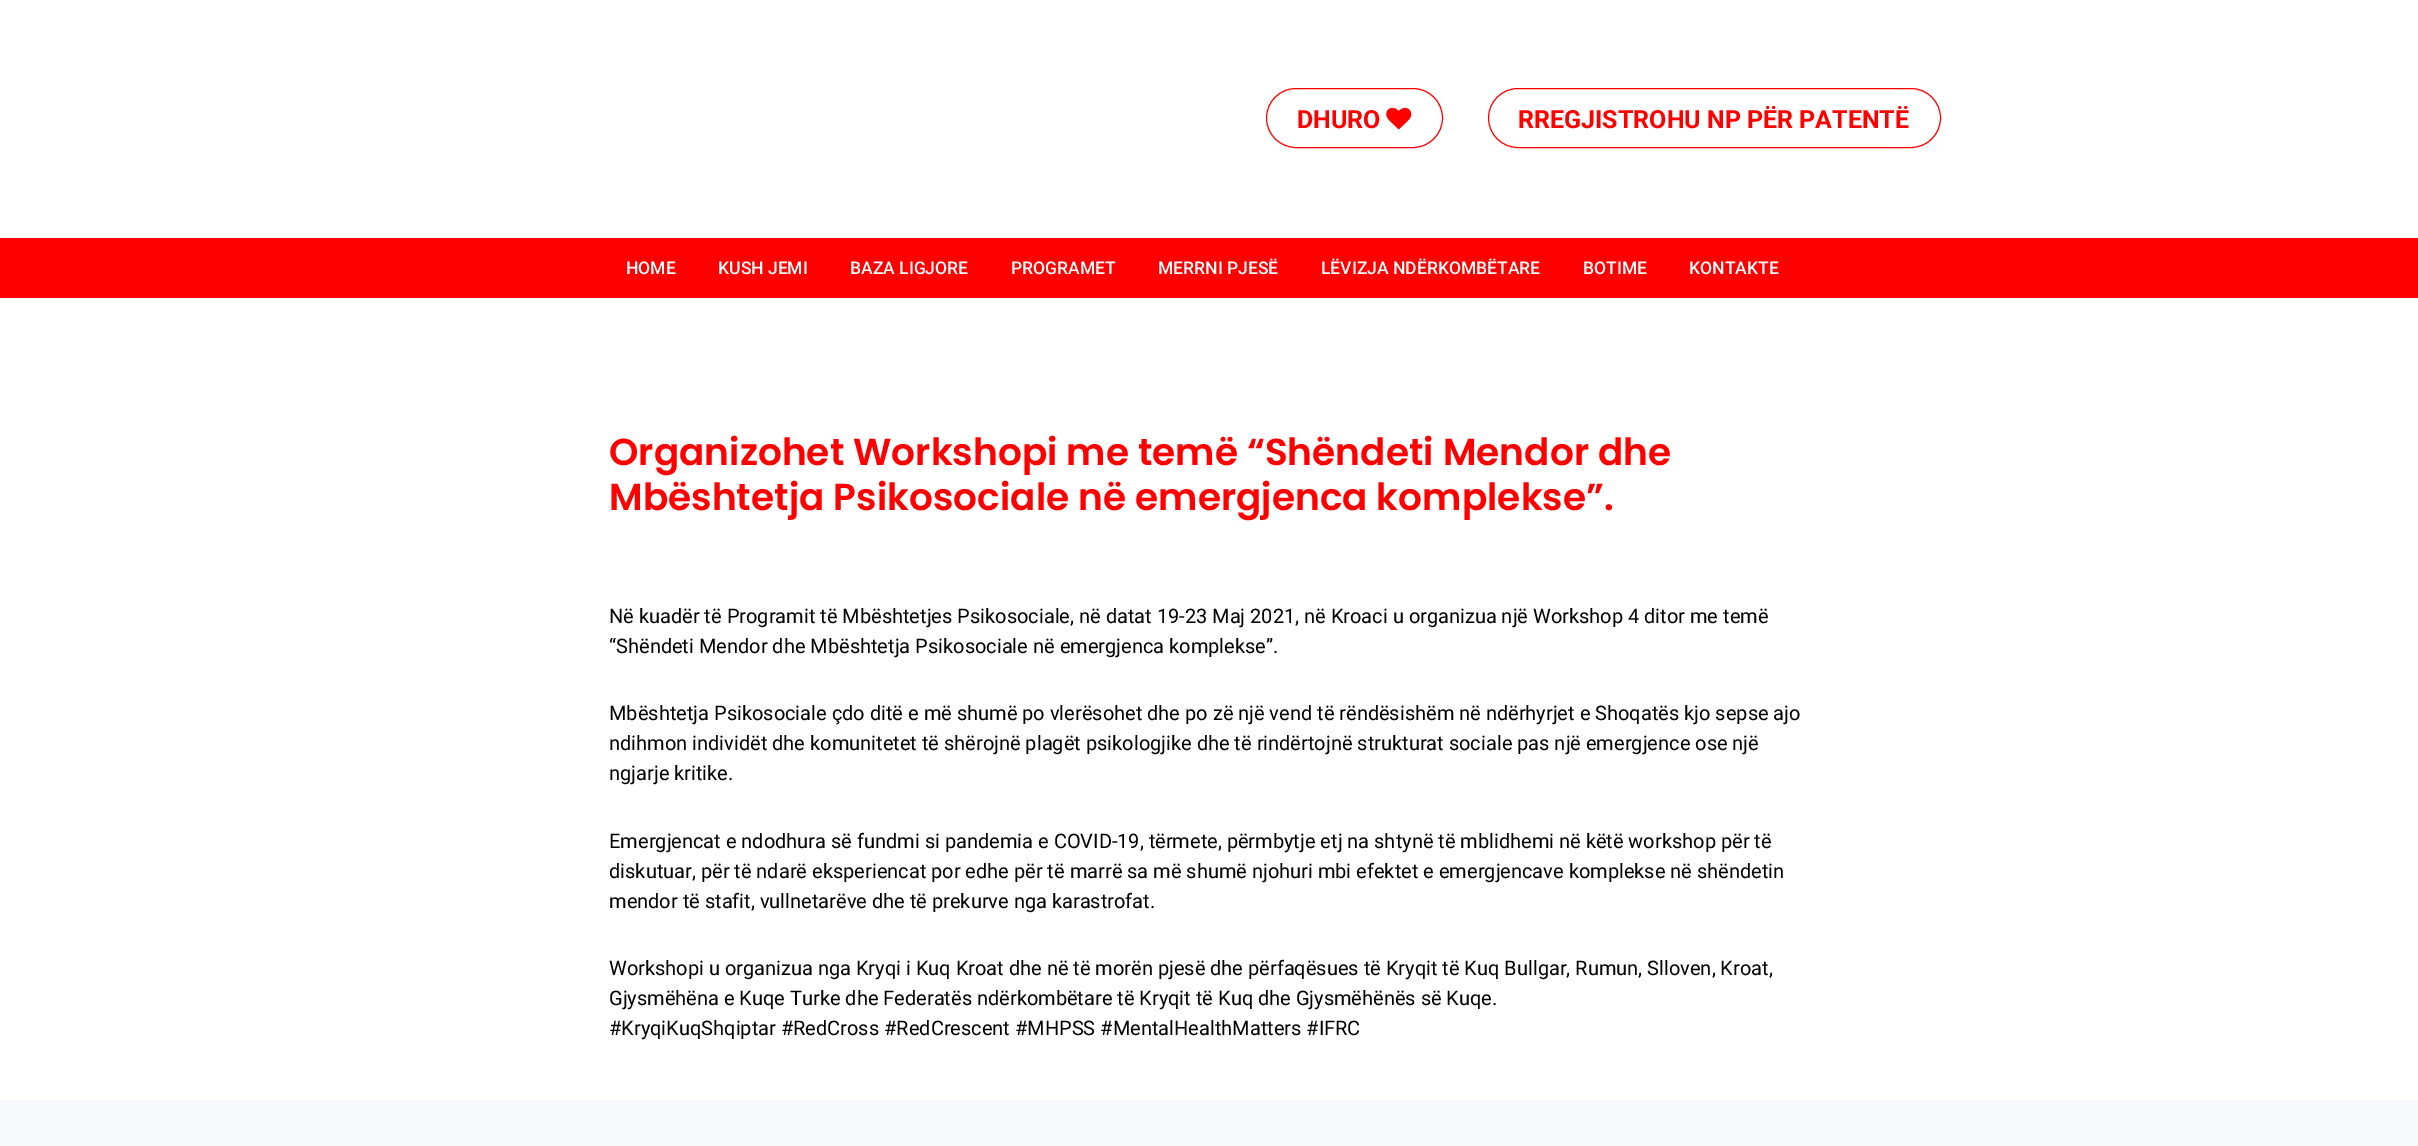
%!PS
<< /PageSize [2418 1146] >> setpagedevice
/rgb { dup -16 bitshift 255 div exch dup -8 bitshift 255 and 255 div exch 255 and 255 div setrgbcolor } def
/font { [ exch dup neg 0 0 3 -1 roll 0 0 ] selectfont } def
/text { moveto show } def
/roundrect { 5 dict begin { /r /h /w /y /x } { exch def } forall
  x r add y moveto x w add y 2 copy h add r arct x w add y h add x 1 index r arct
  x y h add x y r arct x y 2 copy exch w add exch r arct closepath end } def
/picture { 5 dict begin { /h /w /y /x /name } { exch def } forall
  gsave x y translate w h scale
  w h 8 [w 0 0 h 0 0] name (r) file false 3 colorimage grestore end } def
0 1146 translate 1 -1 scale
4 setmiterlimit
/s1 { /Roboto-Bold 25 font 16#FF0000 rgb } def
/s2 { /Roboto-Medium 17.5 font 16#FFFFFF rgb } def
/s3 { /Poppins-SemiBold 37.5 font 16#FF0000 rgb } def
/s4 { /Roboto-Regular 20 font 16#000000 rgb } def
16#FFFFFF rgb
0 0 2418 1146 rectfill
16#FF0000 rgb
1266.5 88.5 176 59 29.5 roundrect stroke
s1
(DHURO) 1297 128 text
(pic1.raw) 1386 107 26 23 picture
1488.5 88.5 452 59 29.5 roundrect stroke
(RREGJISTROHU NP PËR PATENTË) 1518 128 text
0 238 2418 60 rectfill
s2
(HOME) 626 274 text
(KUSH JEMI) 718 274 text
(BAZA LIGJORE) 850 274 text
(PROGRAMET) 1011 274 text
(MERRNI PJESË) 1158 274 text
(LËVIZJA NDËRKOMBËTARE) 1321 274 text
(BOTIME) 1583 274 text
(KONTAKTE) 1689 274 text
s3
(Organizohet Workshopi me temë “Shëndeti Mendor dhe) 609 465 text
(Mbështetja Psikosociale në emergjenca komplekse”.) 609 510 text
s4
(Në kuadër të Programit të Mbështetjes Psikosociale, në datat 19-23 Maj 2021, në Kroaci u organizua një Workshop 4 ditor me temë) 609 623 text
(“Shëndeti Mendor dhe Mbështetja Psikosociale në emergjenca komplekse”.) 609 653 text
(Mbështetja Psikosociale çdo ditë e më shumë po vlerësohet dhe po zë një vend të rëndësishëm në ndërhyrjet e Shoqatës kjo sepse ajo) 609 720 text
(ndihmon individët dhe komunitetet të shërojnë plagët psikologjike dhe të rindërtojnë strukturat sociale pas një emergjence ose një) 609 750 text
(ngjarje kritike.) 609 780 text
(Emergjencat e ndodhura së fundmi si pandemia e COVID-19, tërmete, përmbytje etj na shtynë të mblidhemi në këtë workshop për të) 609 848 text
(diskutuar, për të ndarë eksperiencat por edhe për të marrë sa më shumë njohuri mbi efektet e emergjencave komplekse në shëndetin) 609 878 text
(mendor të stafit, vullnetarëve dhe të prekurve nga karastrofat.) 609 908 text
(Workshopi u organizua nga Kryqi i Kuq Kroat dhe në të morën pjesë dhe përfaqësues të Kryqit të Kuq Bullgar, Rumun, Slloven, Kroat,) 609 975 text
(Gjysmëhëna e Kuqe Turke dhe Federatës ndërkombëtare të Kryqit të Kuq dhe Gjysmëhënës së Kuqe.) 609 1005 text
(#KryqiKuqShqiptar #RedCross #RedCrescent #MHPSS #MentalHealthMatters #IFRC) 609 1035 text
16#F8F9FA rgb
0 1100 2418 46 rectfill
showpage
